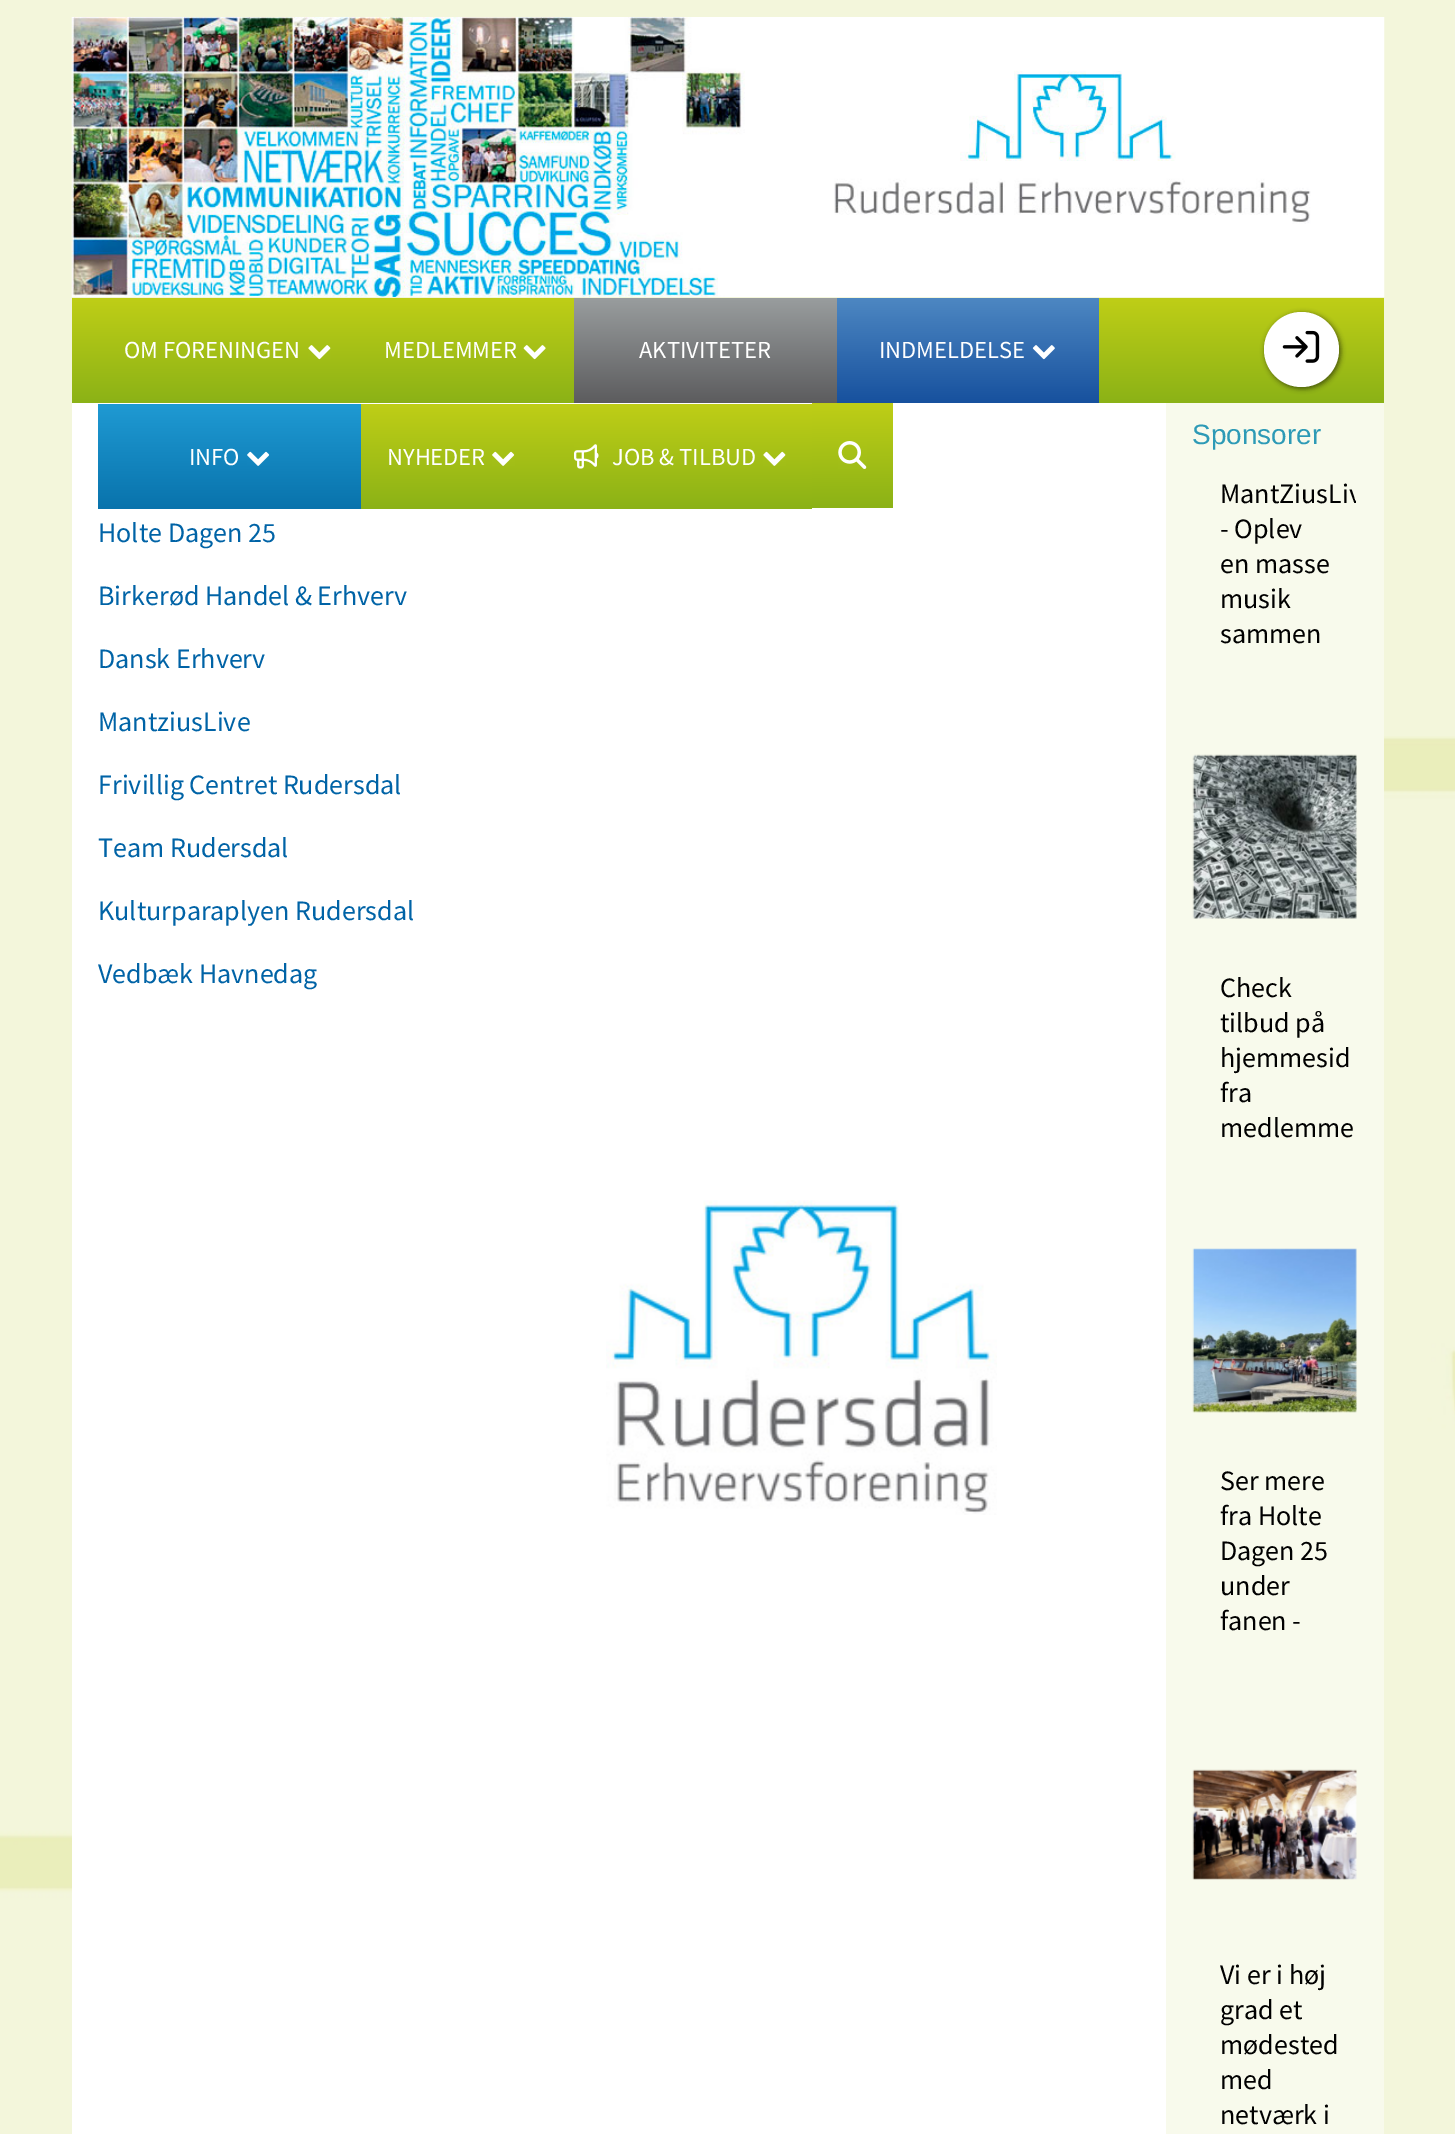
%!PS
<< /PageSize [1455 2134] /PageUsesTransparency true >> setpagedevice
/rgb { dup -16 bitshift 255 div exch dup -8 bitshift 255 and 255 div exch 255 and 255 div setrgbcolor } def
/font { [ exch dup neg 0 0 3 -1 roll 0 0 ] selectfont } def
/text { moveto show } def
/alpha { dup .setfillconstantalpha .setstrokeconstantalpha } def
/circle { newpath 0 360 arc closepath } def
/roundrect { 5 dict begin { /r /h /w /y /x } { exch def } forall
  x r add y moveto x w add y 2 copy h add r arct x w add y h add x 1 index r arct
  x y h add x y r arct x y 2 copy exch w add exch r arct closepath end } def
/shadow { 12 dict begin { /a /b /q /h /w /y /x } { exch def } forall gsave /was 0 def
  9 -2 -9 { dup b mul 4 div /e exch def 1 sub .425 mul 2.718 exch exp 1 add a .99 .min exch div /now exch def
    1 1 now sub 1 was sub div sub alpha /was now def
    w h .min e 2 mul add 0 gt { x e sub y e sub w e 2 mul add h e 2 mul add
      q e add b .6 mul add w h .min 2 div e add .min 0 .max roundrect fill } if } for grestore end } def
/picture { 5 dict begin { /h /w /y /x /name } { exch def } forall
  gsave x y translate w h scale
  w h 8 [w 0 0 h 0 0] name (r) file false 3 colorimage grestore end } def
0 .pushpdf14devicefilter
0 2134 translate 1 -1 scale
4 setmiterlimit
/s1 { /SourceSansPro-Regular 24.5 font 16#FFFFFF rgb } def
/s2 { /SourceSansPro-Regular 28 font 16#0063A6 rgb } def
/s3 { /LiberationSans-Regular 28 font 16#2D9AB6 rgb } def
/s4 { /SourceSansPro-Regular 28 font 16#000000 rgb } def
16#F3F6DB rgb
0 0 1455 2134 rectfill
(pic1.raw) 0 736 1455 1398 picture
(pic2.raw) 71 17 1314 280 picture
gsave 72 298 moveto 1384 298 lineto 1384 403 lineto 72 403 lineto closepath clip newpath
<< /ShadingType 2 /ColorSpace /DeviceRGB /Coords [728 297 728 403] /Extend [true true] /Function << /FunctionType 2 /Domain [0 1] /C0 [0.749 0.808 0.086] /C1 [0.545 0.698 0.09] /N 1 >> >> shfill grestore
s1
(OM FORENINGEN) 124 358 text
(pic3.raw) 308 345 23 15 picture
(MEDLEMMER) 384 358 text
(pic4.raw) 523 345 23 15 picture
gsave 574 298 moveto 837 298 lineto 837 403 lineto 574 403 lineto closepath clip newpath
<< /ShadingType 2 /ColorSpace /DeviceRGB /Coords [705 298 705 403] /Extend [true true] /Function << /FunctionType 2 /Domain [0 1] /C0 [0.6 0.616 0.62] /C1 [0.361 0.361 0.369] /N 1 >> >> shfill grestore
(AKTIVITETER) 639 358 text
gsave 837 298 moveto 1099 298 lineto 1099 403 lineto 837 403 lineto closepath clip newpath
<< /ShadingType 2 /ColorSpace /DeviceRGB /Coords [968 298 968 403] /Extend [true true] /Function << /FunctionType 2 /Domain [0 1] /C0 [0.302 0.529 0.761] /C1 [0.09 0.318 0.62] /N 1 >> >> shfill grestore
(INDMELDELSE) 879 358 text
(pic5.raw) 1032 345 23 15 picture
72 403 1094 1731 rectfill
gsave 98 404 moveto 361 404 lineto 361 509 lineto 98 509 lineto closepath clip newpath
<< /ShadingType 2 /ColorSpace /DeviceRGB /Coords [229 404 229 509] /Extend [true true] /Function << /FunctionType 2 /Domain [0 1] /C0 [0.122 0.604 0.827] /C1 [0.035 0.451 0.675] /N 1 >> >> shfill grestore
(INFO) 189 465 text
(pic6.raw) 247 451 23 15 picture
gsave 361 404 moveto 543 404 lineto 543 509 lineto 361 509 lineto closepath clip newpath
<< /ShadingType 2 /ColorSpace /DeviceRGB /Coords [452 404 452 509] /Extend [true true] /Function << /FunctionType 2 /Domain [0 1] /C0 [0.749 0.808 0.086] /C1 [0.545 0.698 0.09] /N 1 >> >> shfill grestore
(NYHEDER) 387 465 text
(pic7.raw) 492 451 23 15 picture
gsave 543 404 moveto 812 404 lineto 812 509 lineto 543 509 lineto closepath clip newpath
<< /ShadingType 2 /ColorSpace /DeviceRGB /Coords [677 404 677 509] /Extend [true true] /Function << /FunctionType 2 /Domain [0 1] /C0 [0.749 0.808 0.086] /C1 [0.545 0.698 0.09] /N 1 >> >> shfill grestore
(pic8.raw) 574 444 25 25 picture
(JOB & TILBUD) 612 465 text
(pic9.raw) 763 451 23 15 picture
gsave 812 403 moveto 893 403 lineto 893 508 lineto 812 508 lineto closepath clip newpath
<< /ShadingType 2 /ColorSpace /DeviceRGB /Coords [852 403 852 508] /Extend [true true] /Function << /FunctionType 2 /Domain [0 1] /C0 [0.749 0.808 0.086] /C1 [0.545 0.698 0.09] /N 1 >> >> shfill grestore
(pic10.raw) 838 441 29 28 picture
16#000000 rgb
1265 313 76 76 38 2.5 0.5 shadow
16#FFFFFF rgb
1301.5 349.5 37.5 circle fill
(pic11.raw) 1282 330 38 33 picture
s2
(Holte Dagen 25) 98 542 text
(Birkerød Handel & Erhverv) 98 605 text
(Dansk Erhverv) 98 668 text
(MantziusLive) 98 731 text
(Frivillig Centret Rudersdal) 98 794 text
(Team Rudersdal) 98 857 text
(Kulturparaplyen Rudersdal) 98 920 text
(Vedbæk Havnedag) 98 983 text
(pic12.raw) 606 1200 391 315 picture
16#F8FAEC rgb
1166 403 218 1731 rectfill
s3
(Sponsorer) 1192 444 text
gsave
1194 476 162 175 rectclip
s4
(MantZiusLiv) 1220 503 text
grestore
s4
(- Oplev) 1220 538 text
(en masse) 1220 573 text
(musik) 1220 608 text
(sammen) 1220 643 text
(pic13.raw) 1192 754 165 165 picture
(Check) 1220 997 text
(tilbud på) 1220 1032 text
(hjemmesid) 1220 1067 text
(fra) 1220 1102 text
(medlemme) 1220 1137 text
(pic14.raw) 1192 1248 165 165 picture
(Ser mere) 1220 1490 text
(fra Holte) 1220 1525 text
(Dagen 25) 1220 1560 text
(under) 1220 1595 text
(fanen -) 1220 1630 text
(pic15.raw) 1192 1769 165 111 picture
(Vi er i høj) 1220 1984 text
(grad et) 1220 2019 text
(mødested) 1220 2054 text
(med) 1220 2089 text
(netværk i) 1220 2124 text
.poppdf14devicefilter showpage
